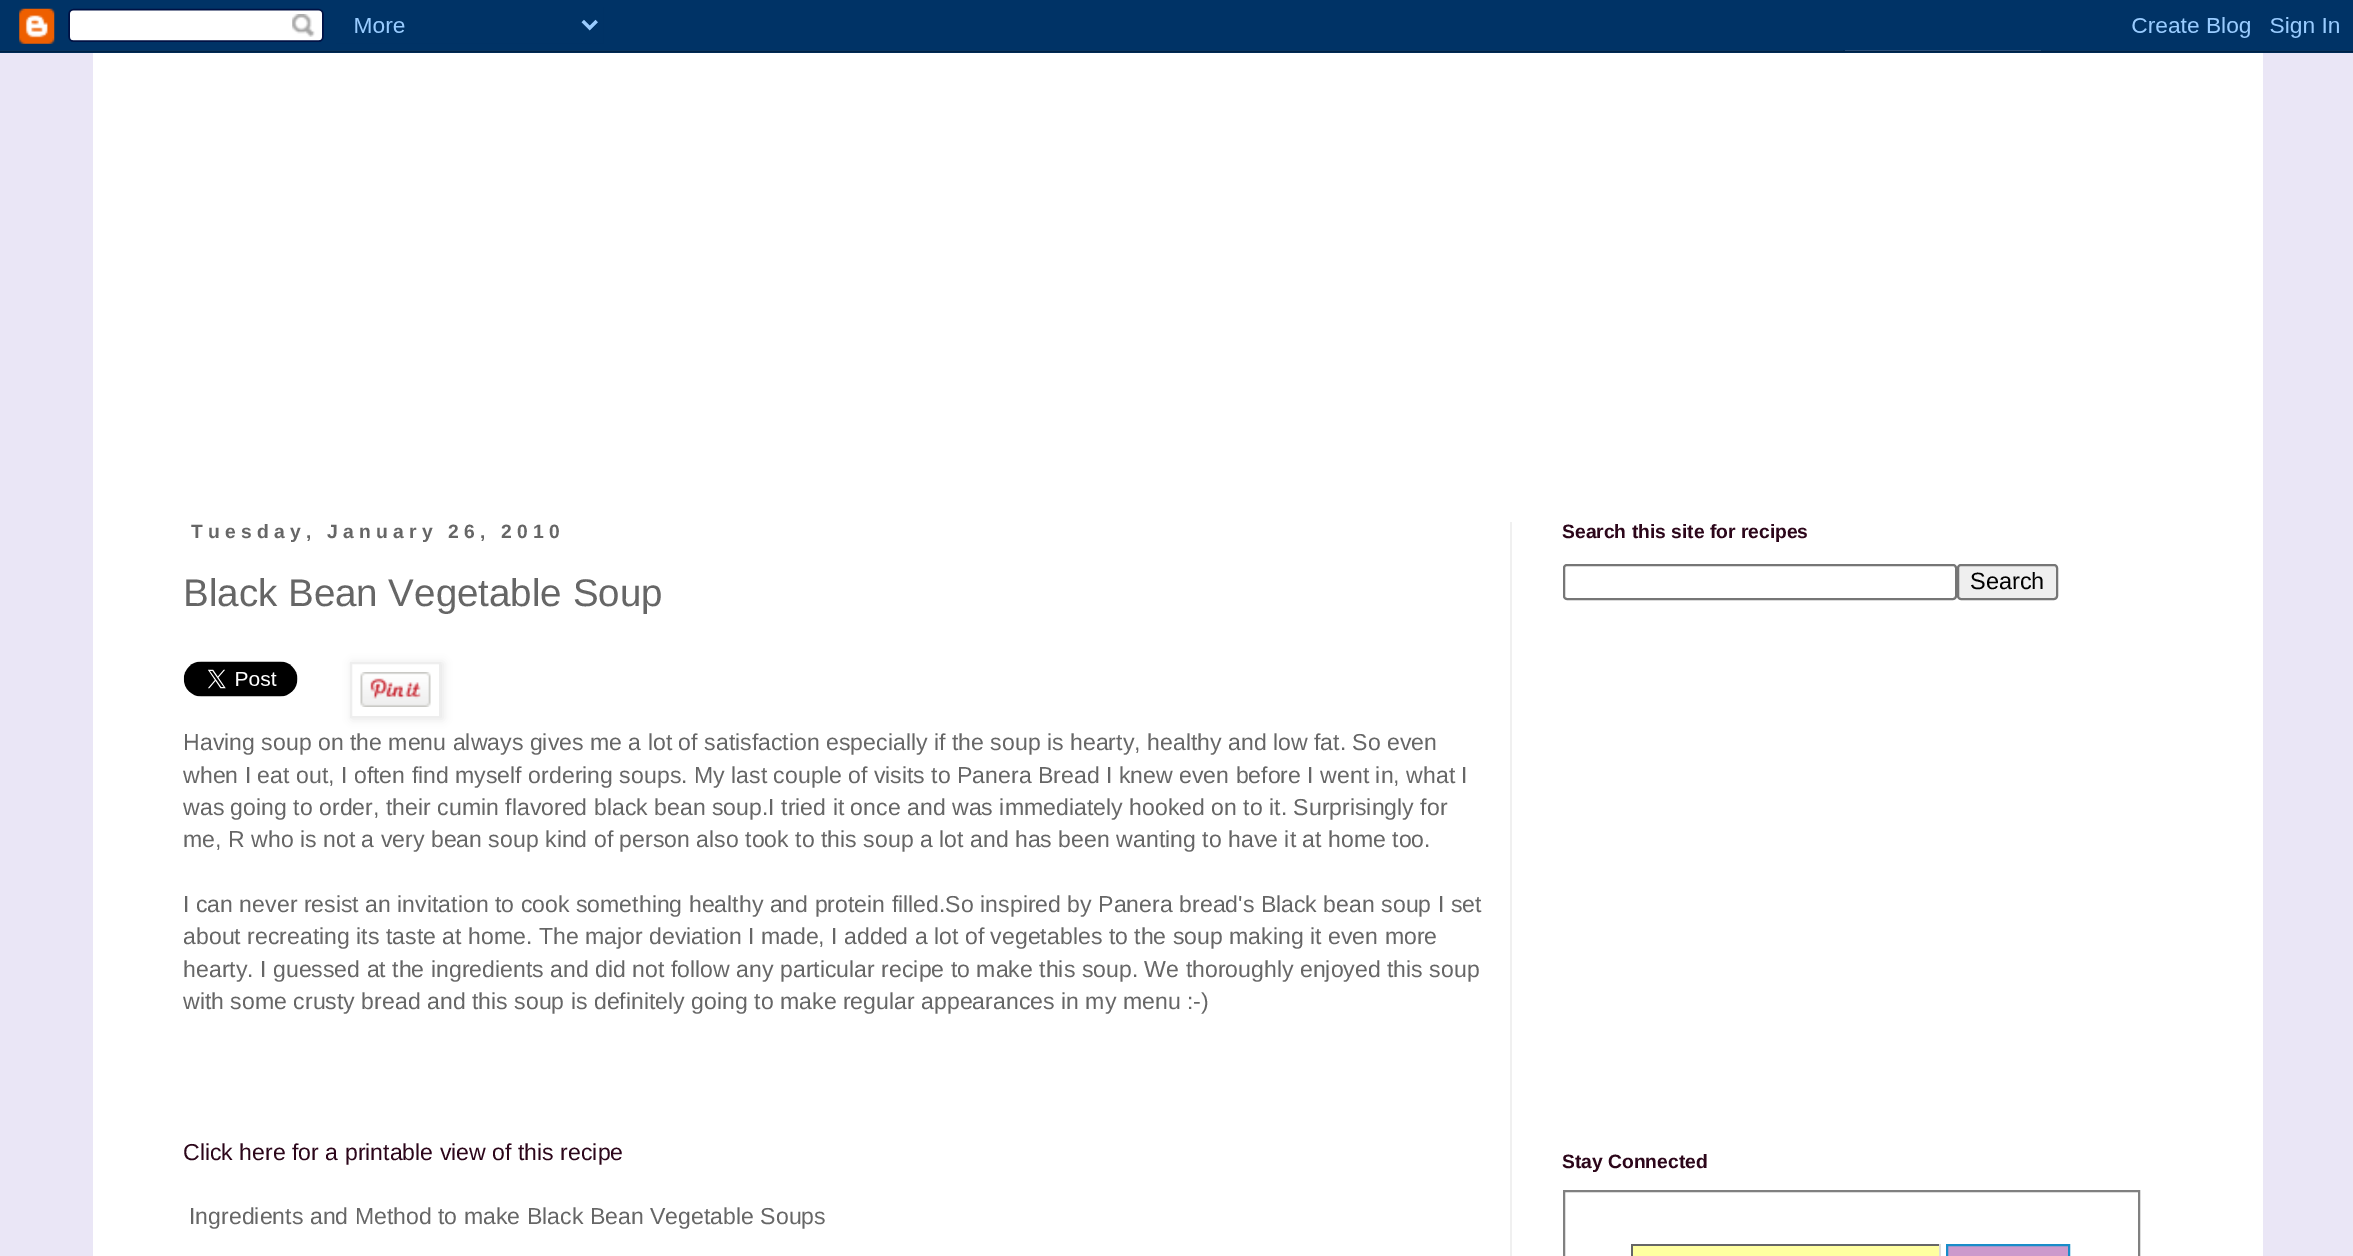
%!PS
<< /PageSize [2353 1256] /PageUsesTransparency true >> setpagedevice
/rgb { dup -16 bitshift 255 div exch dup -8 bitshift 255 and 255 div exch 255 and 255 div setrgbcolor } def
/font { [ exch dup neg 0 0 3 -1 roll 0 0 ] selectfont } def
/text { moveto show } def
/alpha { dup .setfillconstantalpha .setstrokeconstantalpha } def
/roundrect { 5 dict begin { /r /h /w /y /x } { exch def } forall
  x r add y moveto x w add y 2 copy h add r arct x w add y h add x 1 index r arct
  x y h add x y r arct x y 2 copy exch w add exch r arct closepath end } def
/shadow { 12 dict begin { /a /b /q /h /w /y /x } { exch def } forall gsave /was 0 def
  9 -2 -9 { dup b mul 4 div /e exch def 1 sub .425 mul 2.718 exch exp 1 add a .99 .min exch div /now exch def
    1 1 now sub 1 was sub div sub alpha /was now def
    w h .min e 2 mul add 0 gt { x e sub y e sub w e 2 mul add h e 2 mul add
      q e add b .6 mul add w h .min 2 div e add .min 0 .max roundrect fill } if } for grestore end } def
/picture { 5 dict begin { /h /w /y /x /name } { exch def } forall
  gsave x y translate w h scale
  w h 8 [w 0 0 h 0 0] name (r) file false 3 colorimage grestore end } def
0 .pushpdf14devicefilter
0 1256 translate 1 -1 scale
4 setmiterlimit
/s1 { /LiberationSans-Regular 38.5 font 16#666666 rgb } def
/s2 { /LiberationSans-Regular 23.1 font 16#666666 rgb } def
/s3 { /LiberationSans-Regular 23.1 font 16#2C061A rgb } def
/s4 { /LiberationSans-Bold 19.25 font 16#2C061A rgb } def
/s5 { /LiberationSans-Regular 23.5 font 16#000000 rgb } def
16#EAE6F6 rgb
0 0 2353 1256 rectfill
(pic1.raw) 0 0 2353 53 picture
16#FFFFFF rgb
93 53 2170 1203 rectfill
16#F0F0F0 rgb
1510 522 2 734 rectfill
/LiberationSans-Bold 19.25 font
16#666666 rgb
191 538 moveto 5.25 0 (Tuesday, January 26, 2010) ashow
s1
(Black Bean Vegetable Soup) 183 606 text
(pic2.raw) 183 661 115 36 picture
16#000000 rgb
352 663 91 56 0 4.5 0.1 shadow
16#FFFFFF rgb
351 663 moveto 440 663 lineto 440 717 lineto 351 717 lineto closepath gsave fill grestore
16#EEEEEE rgb
2 setlinewidth
stroke
(pic3.raw) 360 672 71 35 picture
s2
(Having soup on the menu always gives me a lot of satisfaction especially if the soup is hearty, healthy and low fat. So even) 183 750 text
(when I eat out, I often find myself ordering soups. My last couple of visits to Panera Bread I knew even before I went in, what I) 183 783 text
(was going to order, their cumin flavored black bean soup.I tried it once and was immediately hooked on to it. Surprisingly for) 183 815 text
(me, R who is not a very bean soup kind of person also took to this soup a lot and has been wanting to have it at home too.) 183 847 text
(I can never resist an invitation to cook something healthy and protein filled.So inspired by Panera bread's Black bean soup I set) 183 912 text
(about recreating its taste at home. The major deviation I made, I added a lot of vegetables to the soup making it even more) 183 944 text
(hearty. I guessed at the ingredients and did not follow any particular recipe to make this soup. We thoroughly enjoyed this soup) 183 977 text
(with some crusty bread and this soup is definitely going to make regular appearances in my menu :-\)) 183 1009 text
s3
(Click here for a printable view of this recipe) 183 1160 text
s2
(Ingredients and Method to make Black Bean Vegetable Soups) 189 1224 text
s4
(Search this site for recipes) 1562 538 text
16#767676 rgb
1564 565 392 34 3 roundrect stroke
16#EFEFEF rgb
1958 565 99 34 3 roundrect gsave fill grestore
16#767676 rgb
stroke
s5
(Search) 1970 589 text
s4
(Stay Connected) 1562 1168 text
16#808080 rgb
1564 1191 575 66 rectstroke
16#FFFFA0 rgb
1633 1246 306 10 rectfill
16#666666 rgb
1631 1244 310 2 rectfill
16#DDDDDD rgb
1939 1244 2 12 rectfill
16#666666 rgb
1631 1244 2 12 rectfill
16#CC99CC rgb
1947 1245 moveto 2069 1245 lineto 2069 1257 lineto 1947 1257 lineto closepath gsave fill grestore
16#198DC9 rgb
stroke
.poppdf14devicefilter showpage
